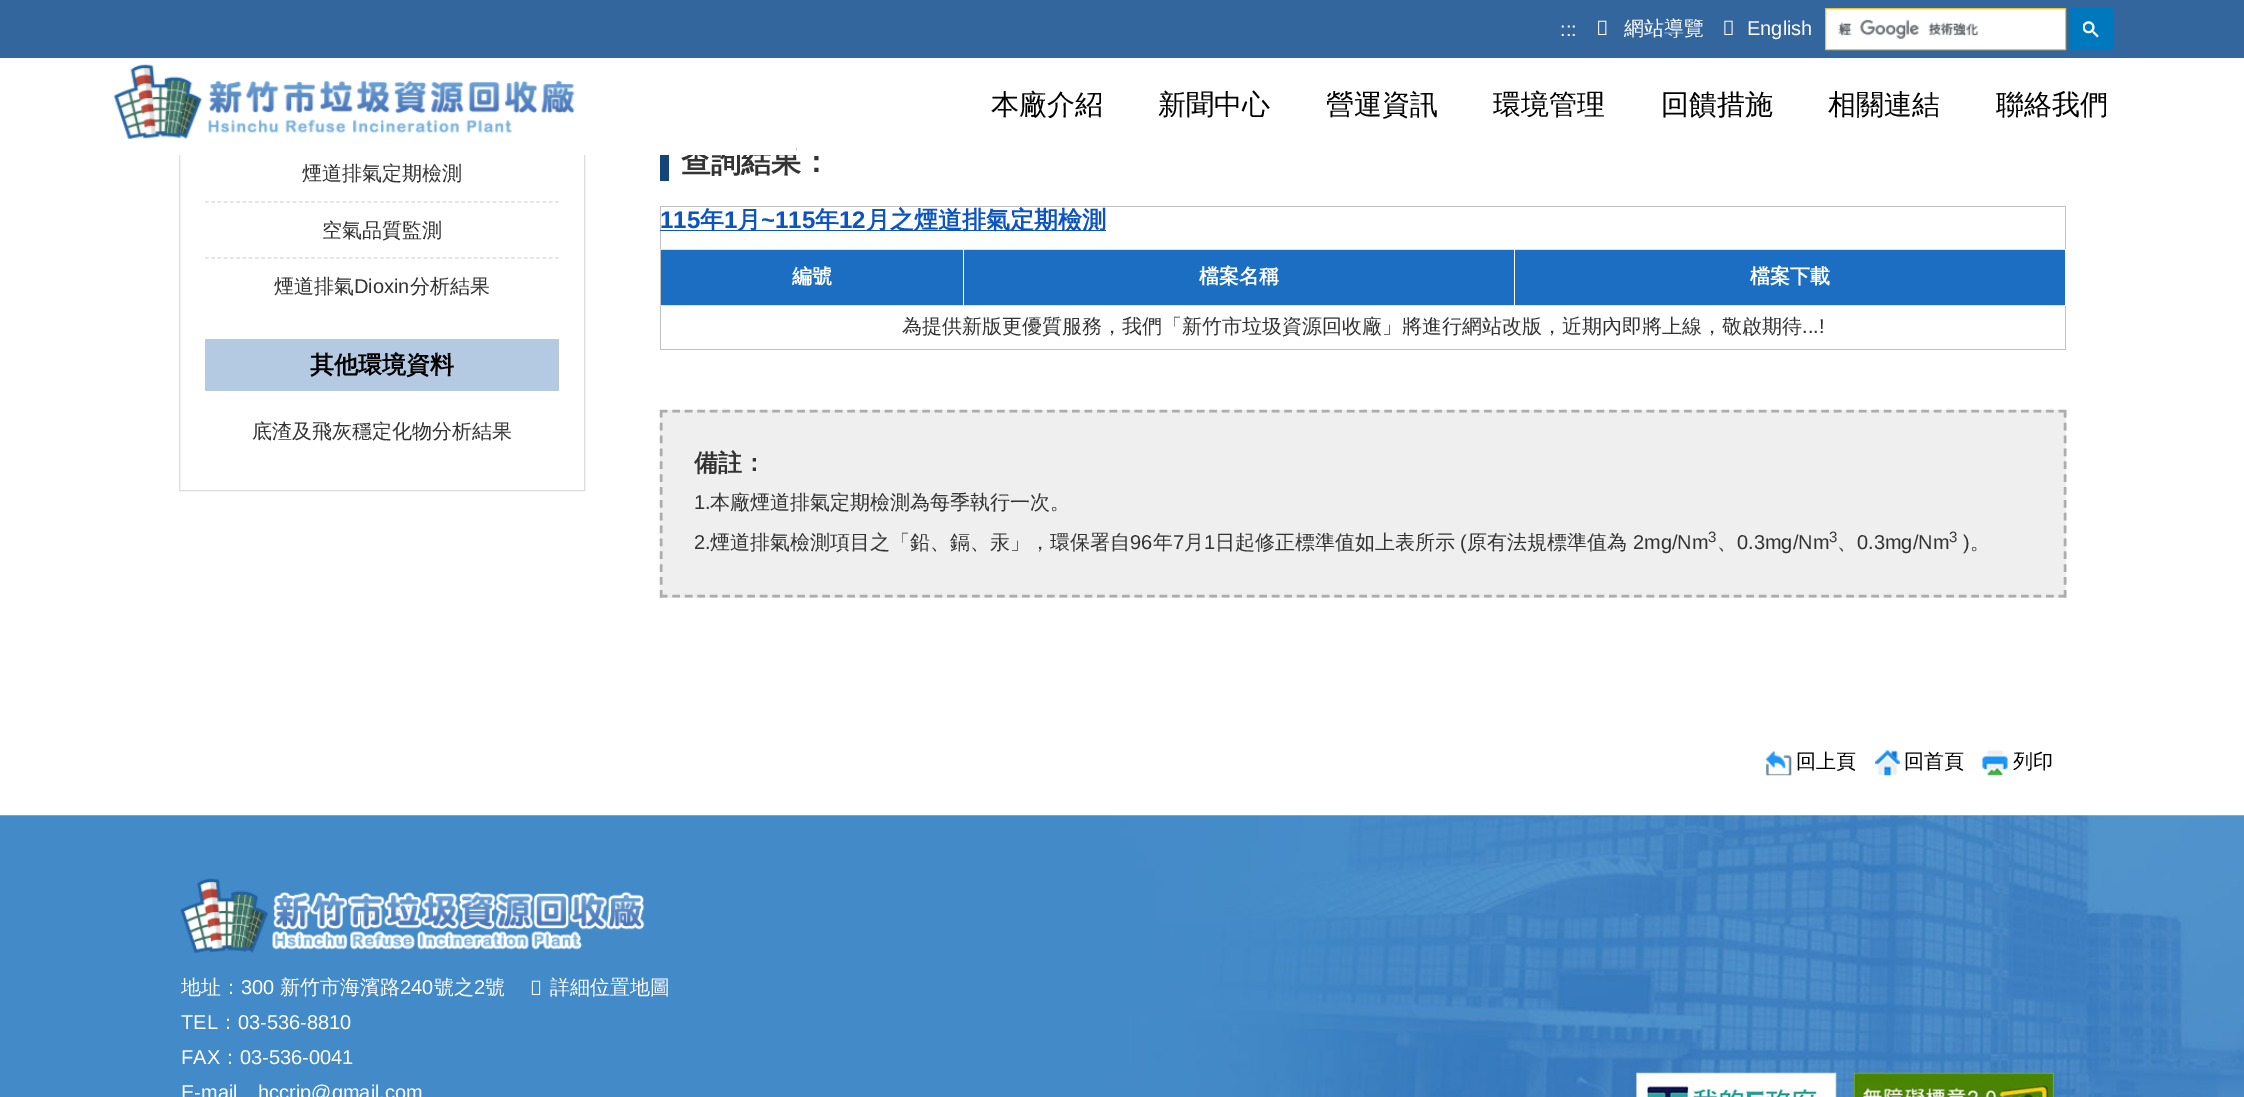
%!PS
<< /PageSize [2244 1097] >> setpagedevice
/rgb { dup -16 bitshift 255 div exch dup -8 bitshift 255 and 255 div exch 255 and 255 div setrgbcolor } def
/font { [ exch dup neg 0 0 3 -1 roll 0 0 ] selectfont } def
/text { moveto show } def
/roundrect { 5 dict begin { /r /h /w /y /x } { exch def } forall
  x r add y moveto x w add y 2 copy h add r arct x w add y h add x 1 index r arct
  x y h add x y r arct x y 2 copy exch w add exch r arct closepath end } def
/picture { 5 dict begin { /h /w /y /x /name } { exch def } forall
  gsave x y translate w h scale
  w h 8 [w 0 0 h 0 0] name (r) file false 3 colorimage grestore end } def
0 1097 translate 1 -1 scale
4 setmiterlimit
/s1 { /WenQuanYiZenHei-Bold 30 font 16#333333 rgb } def
/s2 { /LiberationSans-Regular 20 font 16#FFFFFF rgb } def
/s3 { /WenQuanYiZenHei-Medium 20 font 16#FFFFFF rgb } def
/s4 { /WenQuanYiZenHei-Medium 28 font 16#000000 rgb } def
/s5 { /WenQuanYiZenHei-Medium 20 font 16#333333 rgb } def
/s6 { /LiberationSans-Regular 20 font 16#333333 rgb } def
/s7 { /WenQuanYiZenHei-Bold 24 font 16#000000 rgb } def
/s8 { /LiberationSans-Bold 24 font 16#0C54C4 rgb } def
/s9 { /WenQuanYiZenHei-Bold 24 font 16#0C54C4 rgb } def
/s10 { /WenQuanYiZenHei-Bold 20 font 16#FFFFFF rgb } def
/s11 { /WenQuanYiZenHei-Bold 24 font 16#333333 rgb } def
/s12 { /LiberationSans-Regular 15 font 16#333333 rgb } def
/s13 { /WenQuanYiZenHei-Medium 20 font 16#000000 rgb } def
16#FFFFFF rgb
0 0 2244 1097 rectfill
16#DDDDDD rgb
179.5 -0.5 405 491 rectstroke
s1
(查詢結果：) 681 172 text
16#FFFFFF rgb
179 58 617 97 rectfill
16#32669D rgb
0 0 2244 58 rectfill
s2
(:::) 1560 36 text
(pic1.raw) 1598 20 9 15 picture
s3
(網站導覽) 1624 35 text
(pic2.raw) 1724 20 9 15 picture
s2
(English) 1747 35 text
1825.5 8.5 moveto 2065.5 8.5 lineto 2065.5 49.5 lineto 1825.5 49.5 lineto closepath gsave fill grestore
16#F1C232 rgb
stroke
(pic3.raw) 1838 19 141 20 picture
16#0078BD rgb
2069.5 8.5 43 41 2 roundrect gsave fill grestore
stroke
(pic4.raw) 2083 21 16 17 picture
(pic5.raw) 113 64 462 75 picture
s4
(本廠介紹) 991 114 text
(新聞中心) 1158 114 text
(營運資訊) 1326 114 text
(環境管理) 1493 114 text
(回饋措施) 1661 114 text
(相關連結) 1828 114 text
(聯絡我們) 1996 114 text
16#DDDDDD rgb
1.2 setlinewidth
[3.75 2.5] 0 setdash
205 202 moveto 559 202 lineto stroke
s5
(煙道排氣定期檢測) 302 180 text
16#DDDDDD rgb
205 258 moveto 559 258 lineto stroke
s5
(空氣品質監測) 322 237 text
(煙道排氣) 274 293 text
s6
(Dioxin) 354 293 text
s5
(分析結果) 410 293 text
16#B4CAE2 rgb
205 339 354 52 rectfill
s7
(其他環境資料) 310 373 text
s5
(底渣及飛灰穩定化物分析結果) 252 438 text
16#144578 rgb
660 155 9 26 rectfill
16#C1C1C1 rgb
660 206 1406 1 rectfill
2065 206 1 43 rectfill
660 349 1406 1 rectfill
660 206 1 144 rectfill
s8
(115) 660 228 text
660 230 446 1 rectfill
s9
(年) 700 228 text
s8
(1) 724 228 text
s9
(月) 737 228 text
s8
(~115) 761 228 text
s9
(年) 815 228 text
s8
(12) 839 228 text
s9
(月之煙道排氣定期檢測) 866 228 text
16#1C6EC3 rgb
661 250 302 55 rectfill
16#DEE2E6 rgb
660 249 1406 1 rectfill
660 305 1406 1 rectfill
16#FFFFFF rgb
963 249 1 57 rectfill
s10
(編號) 792 283 text
16#1C6EC3 rgb
964 250 550 55 rectfill
16#FFFFFF rgb
1514 249 1 57 rectfill
(檔案名稱) 1199 283 text
16#1C6EC3 rgb
1515 250 550 55 rectfill
16#C1C1C1 rgb
2065 305 1 45 rectfill
16#FFFFFF rgb
2065 249 1 57 rectfill
(檔案下載) 1750 283 text
s5
(為提供新版更優質服務，我們「新竹市垃圾資源回收廠」將進行網站改版，近期內即將上線，敬啟期待) 902 333 text
s6
(...!) 1802 333 text
16#EFEFEF rgb
660 410 1406 188 rectfill
16#ADADAD rgb
2.5 setlinewidth
[7.5 4.99] 0 setdash
660 411 moveto 2066 411 lineto stroke
[7.5 5.36] 0 setdash
2065 410 moveto 2065 597.5 lineto stroke
[7.5 4.99] 0 setdash
660 596 moveto 2066 596 lineto stroke
[7.5 5.36] 0 setdash
661 410 moveto 661 597.5 lineto stroke
s11
(備註：) 694 471 text
s6
(1.) 694 509 text
s5
(本廠煙道排氣定期檢測為每季執行一次。) 710 509 text
s6
(2.) 694 549 text
s5
(煙道排氣檢測項目之「鉛、鎘、汞」，環保署自) 710 549 text
s6
(96) 1130 549 text
s5
(年) 1153 549 text
s6
(7) 1173 549 text
s5
(月) 1184 549 text
s6
(1) 1204 549 text
s5
(日起修正標準值如上表所示) 1215 549 text
s6
(\() 1460 549 text
s5
(原有法規標準值為) 1467 549 text
s6
(2mg/Nm) 1633 549 text
s12
(3) 1708 542 text
s5
(、) 1717 549 text
s6
(0.3mg/Nm) 1737 549 text
s12
(3) 1829 542 text
s5
(、) 1837 549 text
s6
(0.3mg/Nm) 1857 549 text
s12
(3) 1949 542 text
s6
(\)) 1963 549 text
s5
(。) 1970 549 text
(pic6.raw) 1766 751 26 25 picture
s13
(回上頁) 1796 768 text
(pic7.raw) 1875 750 25 26 picture
(回首頁) 1904 768 text
(pic8.raw) 1982 750 26 26 picture
(列印) 2013 768 text
(pic9.raw) 0 815 2244 282 picture
(pic10.raw) 180 878 465 75 picture
s3
(地址：) 181 994 text
s2
(300) 241 994 text
s3
(新竹市海濱路) 280 994 text
s2
(240) 400 994 text
s3
(號之) 434 994 text
s2
(2) 474 994 text
s3
(號) 485 994 text
(pic11.raw) 531 980 10 15 picture
(詳細位置地圖) 550 994 text
s2
(TEL) 181 1029 text
s3
(：) 218 1029 text
s2
(03-536-8810) 238 1029 text
(FAX) 181 1064 text
s3
(：) 220 1064 text
s2
(03-536-0041) 240 1064 text
(E-mail) 181 1099 text
(hccrip@gmail.com) 258 1099 text
(pic12.raw) 1636 1072 201 25 picture
(pic13.raw) 1853 1072 201 25 picture
showpage
